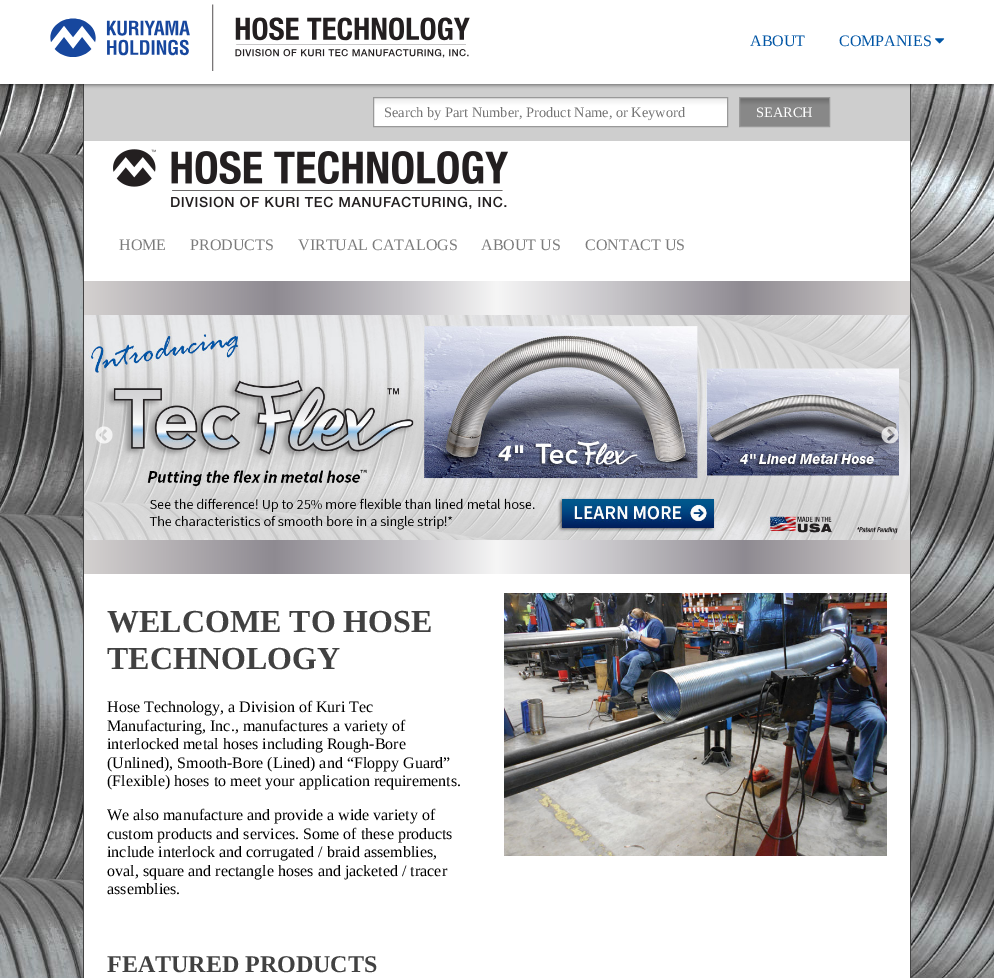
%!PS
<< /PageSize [994 978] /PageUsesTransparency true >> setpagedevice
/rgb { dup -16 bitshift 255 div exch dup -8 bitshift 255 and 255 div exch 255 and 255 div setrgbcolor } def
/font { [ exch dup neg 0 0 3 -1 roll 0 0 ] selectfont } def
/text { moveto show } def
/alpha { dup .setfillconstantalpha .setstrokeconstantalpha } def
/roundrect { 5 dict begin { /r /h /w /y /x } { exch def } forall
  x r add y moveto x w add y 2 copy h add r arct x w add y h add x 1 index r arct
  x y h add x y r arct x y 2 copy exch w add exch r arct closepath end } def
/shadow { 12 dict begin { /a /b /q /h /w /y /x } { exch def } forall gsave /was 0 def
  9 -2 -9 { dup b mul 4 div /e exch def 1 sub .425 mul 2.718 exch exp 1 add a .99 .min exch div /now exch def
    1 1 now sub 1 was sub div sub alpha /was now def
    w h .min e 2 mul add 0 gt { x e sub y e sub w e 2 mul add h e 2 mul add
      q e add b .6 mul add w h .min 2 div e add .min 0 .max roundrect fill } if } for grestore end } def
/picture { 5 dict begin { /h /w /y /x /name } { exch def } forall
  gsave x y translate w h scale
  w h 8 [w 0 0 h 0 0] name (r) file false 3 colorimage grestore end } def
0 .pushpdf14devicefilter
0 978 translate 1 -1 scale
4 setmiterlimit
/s1 { /LiberationSerif-Regular 16 font 16#0055A5 rgb } def
/s2 { /LiberationSerif-Regular 14.4 font 16#757575 rgb } def
/s3 { /LiberationSerif-Regular 14.4 font 16#FFFFFF rgb } def
/s4 { /LiberationSerif-Regular 16 font 16#7B7B7B rgb } def
/s5 { /LiberationSerif-Bold 32 font 16#414141 rgb } def
/s6 { /LiberationSerif-Regular 16 font 16#000000 rgb } def
/s7 { /LiberationSerif-Bold 24 font 16#414141 rgb } def
16#FFFFFF rgb
0 0 994 978 rectfill
(pic1.raw) 0 84 994 894 picture
16#434343 rgb
910 84 1 894 rectfill
83 84 1 894 rectfill
16#CECECE rgb
84 84 826 57 rectfill
16#000000 rgb
0 1 994 84 0 2 0.5 shadow
16#FFFFFF rgb
0 0 994 84 rectfill
(pic2.raw) 50 4 420 67 picture
s1
(ABOUT) 750 46 text
(COMPANIES) 839 46 text
(pic3.raw) 935 38 10 6 picture
16#FFFFFF rgb
84 141 826 837 rectfill
gsave 374 98 moveto 727 98 lineto 727 126 lineto 374 126 lineto closepath clip newpath
<< /ShadingType 2 /ColorSpace /DeviceRGB /Coords [551 98 551 126] /Extend [true true] /Function << /FunctionType 3 /Domain [0 1] /Functions [<< /FunctionType 2 /Domain [0 1] /C0 [0.918 0.918 0.918] /C1 [1 1 1] /N 1 >> << /FunctionType 2 /Domain [0 1] /C0 [1 1 1] /C1 [1 1 1] /N 1 >>] /Bounds [0.26] /Encode [0 1 0 1] >> >> shfill grestore
16#999999 rgb
373.5 97.5 354 29 rectstroke
s2
(Search by Part Number, Product Name, or Keyword) 384 117 text
gsave 740 98 moveto 829 98 lineto 829 126 lineto 740 126 lineto closepath clip newpath
<< /ShadingType 2 /ColorSpace /DeviceRGB /Coords [785 98 785 126] /Extend [true true] /Function << /FunctionType 3 /Domain [0 1] /Functions [<< /FunctionType 2 /Domain [0 1] /C0 [0.42 0.42 0.42] /C1 [0.533 0.533 0.533] /N 1 >> << /FunctionType 2 /Domain [0 1] /C0 [0.533 0.533 0.533] /C1 [0.533 0.533 0.533] /N 1 >>] /Bounds [0.26] /Encode [0 1 0 1] >> >> shfill grestore
16#999999 rgb
739.5 97.5 90 29 rectstroke
s3
(SEARCH) 756 117 text
(pic4.raw) 113 149 395 61 picture
s4
(HOME) 119 250 text
(PRODUCTS) 190 250 text
(VIRTUAL CATALOGS) 298 250 text
(ABOUT US) 481 250 text
(CONTACT US) 585 250 text
gsave 84 281 moveto 910 281 lineto 910 299 lineto 84 299 lineto closepath clip newpath
<< /ShadingType 2 /ColorSpace /DeviceRGB /Coords [84 290 910 290] /Extend [true true] /Function << /FunctionType 3 /Domain [0 1] /Functions [<< /FunctionType 2 /Domain [0 1] /C0 [0.831 0.82 0.816] /C1 [0.557 0.541 0.569] /N 1 >> << /FunctionType 2 /Domain [0 1] /C0 [0.557 0.541 0.569] /C1 [0.78 0.773 0.788] /N 1 >> << /FunctionType 2 /Domain [0 1] /C0 [0.78 0.773 0.788] /C1 [0.965 0.965 0.965] /N 1 >> << /FunctionType 2 /Domain [0 1] /C0 [0.965 0.965 0.965] /C1 [0.78 0.773 0.788] /N 1 >> << /FunctionType 2 /Domain [0 1] /C0 [0.78 0.773 0.788] /C1 [0.557 0.541 0.569] /N 1 >> << /FunctionType 2 /Domain [0 1] /C0 [0.557 0.541 0.569] /C1 [0.831 0.82 0.816] /N 1 >> << /FunctionType 2 /Domain [0 1] /C0 [0.831 0.82 0.816] /C1 [0.831 0.82 0.816] /N 1 >>] /Bounds [0.23 0.39 0.5 0.64 0.8 0.99] /Encode [0 1 0 1 0 1 0 1 0 1 0 1 0 1] >> >> shfill grestore
gsave 84 299 moveto 910 299 lineto 910 574 lineto 84 574 lineto closepath clip newpath
<< /ShadingType 2 /ColorSpace /DeviceRGB /Coords [84 437 910 437] /Extend [true true] /Function << /FunctionType 3 /Domain [0 1] /Functions [<< /FunctionType 2 /Domain [0 1] /C0 [0.831 0.82 0.816] /C1 [0.557 0.541 0.569] /N 1 >> << /FunctionType 2 /Domain [0 1] /C0 [0.557 0.541 0.569] /C1 [0.78 0.773 0.788] /N 1 >> << /FunctionType 2 /Domain [0 1] /C0 [0.78 0.773 0.788] /C1 [0.965 0.965 0.965] /N 1 >> << /FunctionType 2 /Domain [0 1] /C0 [0.965 0.965 0.965] /C1 [0.78 0.773 0.788] /N 1 >> << /FunctionType 2 /Domain [0 1] /C0 [0.78 0.773 0.788] /C1 [0.557 0.541 0.569] /N 1 >> << /FunctionType 2 /Domain [0 1] /C0 [0.557 0.541 0.569] /C1 [0.831 0.82 0.816] /N 1 >> << /FunctionType 2 /Domain [0 1] /C0 [0.831 0.82 0.816] /C1 [0.831 0.82 0.816] /N 1 >>] /Bounds [0.23 0.39 0.5 0.64 0.8 0.99] /Encode [0 1 0 1 0 1 0 1 0 1 0 1 0 1] >> >> shfill grestore
(pic5.raw) 84 315 826 225 picture
(pic6.raw) 95 426 18 18 picture
(pic7.raw) 881 426 18 18 picture
s5
(WELCOME TO HOSE) 107 632 text
(TECHNOLOGY) 107 669 text
s6
(Hose Technology, a Division of Kuri Tec) 107 712 text
(Manufacturing, Inc., manufactures a variety of) 107 731 text
(interlocked metal hoses including Rough-Bore) 107 749 text
(\(Unlined\), Smooth-Bore \(Lined\) and “Floppy Guard”) 107 768 text
(\(Flexible\) hoses to meet your application requirements.) 107 786 text
(We also manufacture and provide a wide variety of) 107 820 text
(custom products and services. Some of these products) 107 839 text
(include interlock and corrugated / braid assemblies,) 107 857 text
(oval, square and rectangle hoses and jacketed / tracer) 107 876 text
(assemblies.) 107 894 text
(pic8.raw) 504 593 383 263 picture
s7
(FEATURED PRODUCTS) 107 972 text
.poppdf14devicefilter showpage
